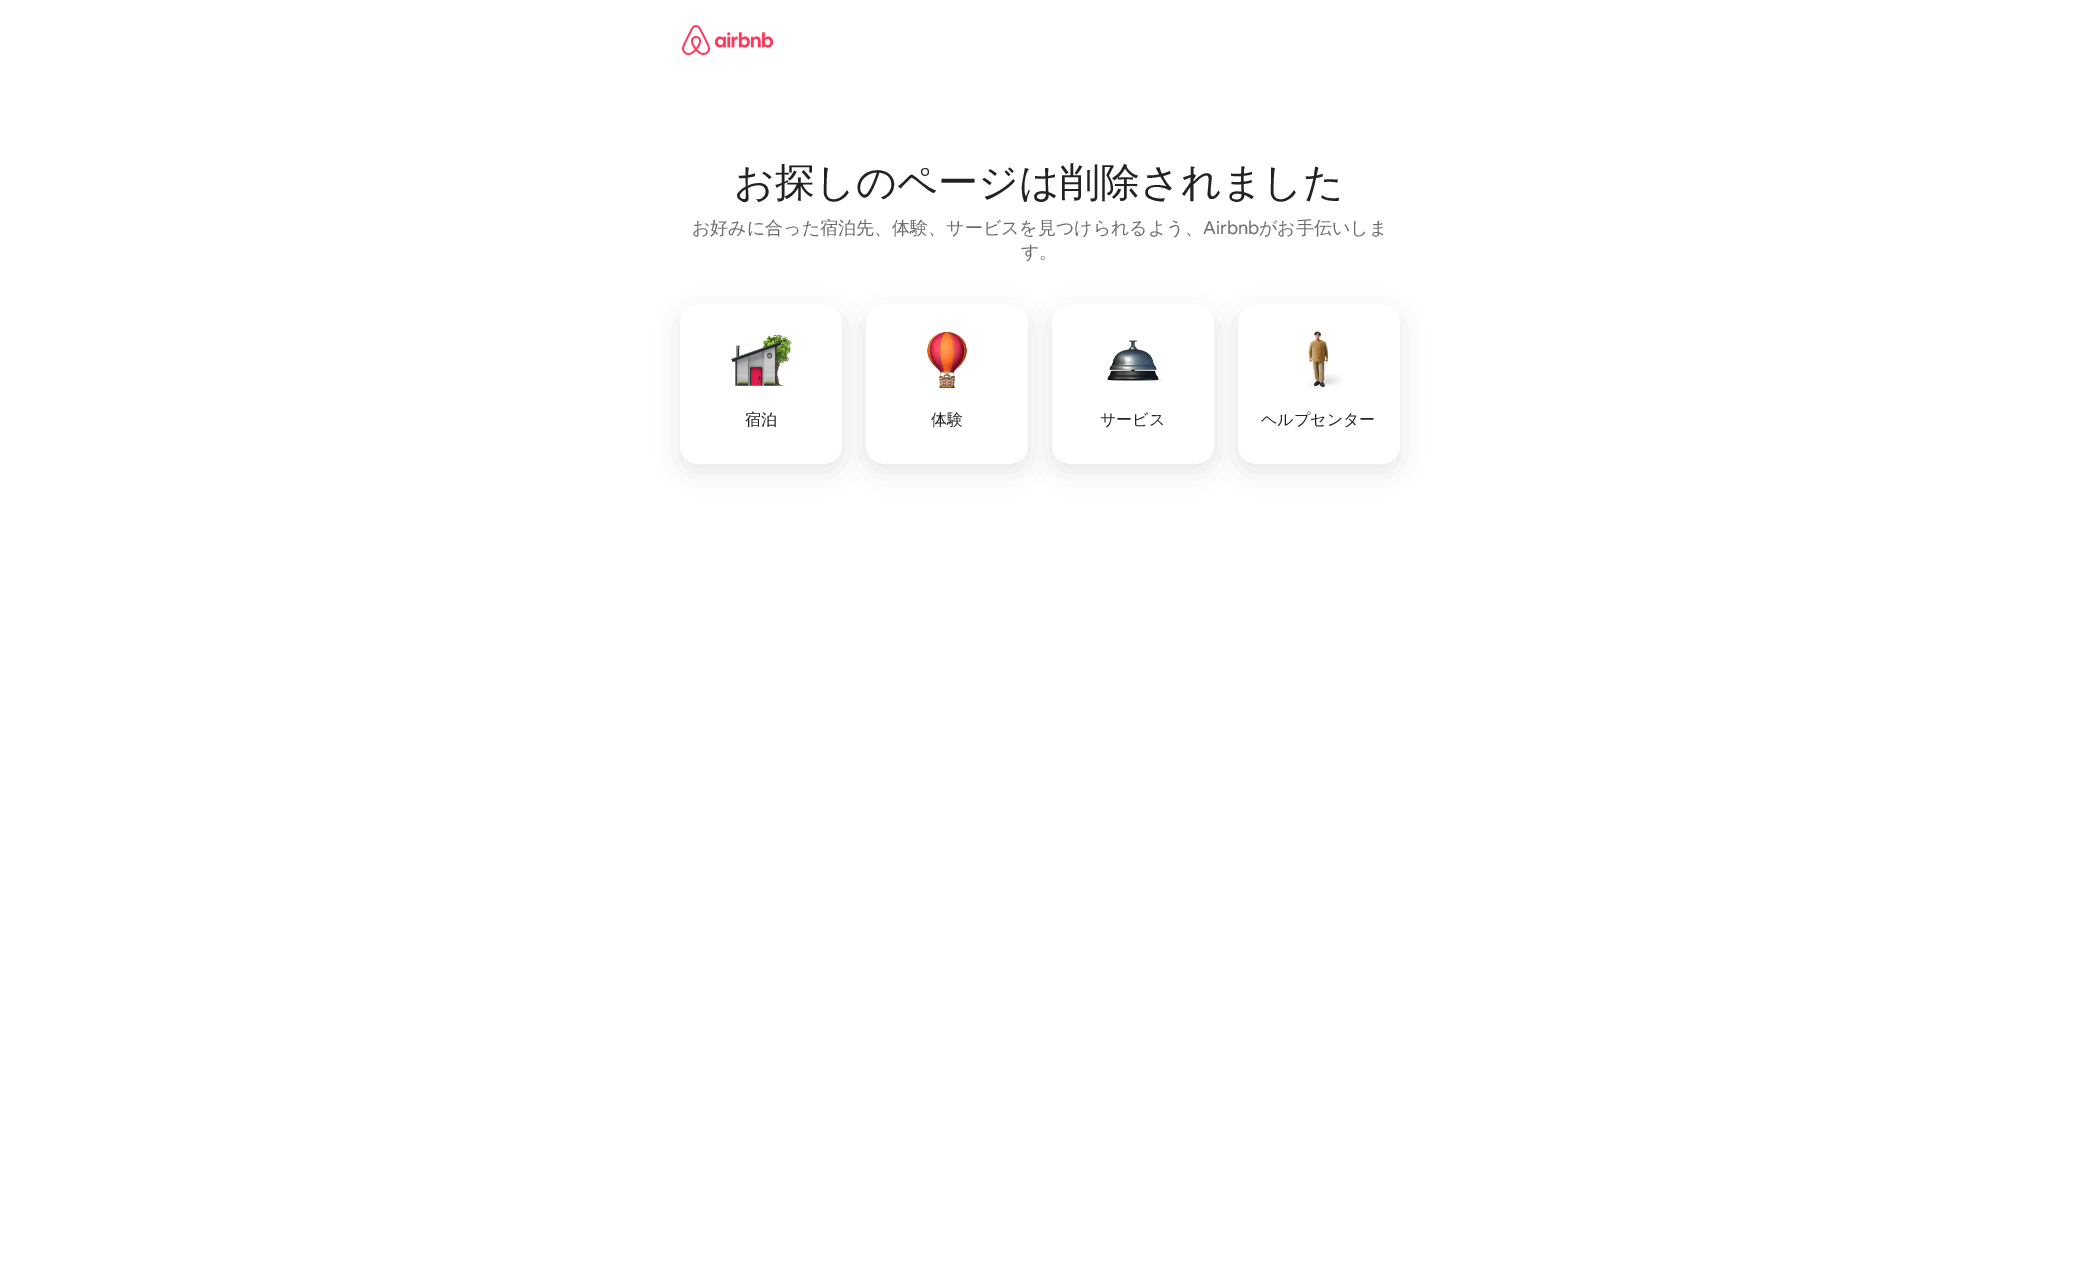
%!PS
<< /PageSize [2079 1288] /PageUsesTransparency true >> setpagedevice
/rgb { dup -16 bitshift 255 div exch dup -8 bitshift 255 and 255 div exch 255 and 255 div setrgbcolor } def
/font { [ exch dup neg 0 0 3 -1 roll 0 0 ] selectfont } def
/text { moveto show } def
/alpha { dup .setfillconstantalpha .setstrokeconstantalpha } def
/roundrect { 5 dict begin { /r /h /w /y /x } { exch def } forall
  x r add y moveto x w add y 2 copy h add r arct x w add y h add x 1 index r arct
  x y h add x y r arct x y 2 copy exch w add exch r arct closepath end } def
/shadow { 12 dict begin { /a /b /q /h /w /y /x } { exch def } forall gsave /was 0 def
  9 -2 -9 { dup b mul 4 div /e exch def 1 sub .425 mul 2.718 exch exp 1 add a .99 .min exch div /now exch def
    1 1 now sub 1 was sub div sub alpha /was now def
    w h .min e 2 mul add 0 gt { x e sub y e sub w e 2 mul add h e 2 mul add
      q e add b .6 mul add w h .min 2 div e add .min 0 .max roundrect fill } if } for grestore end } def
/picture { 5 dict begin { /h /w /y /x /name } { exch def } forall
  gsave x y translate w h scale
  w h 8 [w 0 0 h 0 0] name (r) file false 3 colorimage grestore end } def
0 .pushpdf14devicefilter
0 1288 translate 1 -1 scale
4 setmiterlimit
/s1 { /WenQuanYiZenHei-Medium 40 font 16#222222 rgb } def
/s2 { /WenQuanYiZenHei-Medium 18 font 16#6C6C6C rgb } def
/s3 { /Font-Regular 18 font 16#6C6C6C rgb } def
/s4 { /WenQuanYiZenHei-Medium 16 font 16#222222 rgb } def
16#FFFFFF rgb
0 0 2079 1288 rectfill
(pic1.raw) 682 25 28 30 picture
(pic2.raw) 714 32 59 16 picture
s1
(お探しのページは削除されました) 734 196 text
s2
(お好みに合った宿泊先、体験、サービスを見つけられるよう、) 692 234 text
s3
(Airbnb) 1203 234 text
s2
(がお手伝いしま) 1259 234 text
(す。) 1021 258 text
gsave
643 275 moveto 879 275 lineto 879 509 lineto 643 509 lineto closepath 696 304 moveto 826 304 lineto 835 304 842 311 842 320 curveto 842 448 lineto 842 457 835 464 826 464 curveto 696 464 lineto 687 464 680 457 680 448 curveto 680 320 lineto 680 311 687 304 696 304 curveto closepath eoclip newpath
16#000000 rgb
680 312 162 160 16 12 0.1 shadow
grestore
(pic3.raw) 731 334 61 52 picture
s4
(宿泊) 745 425 text
gsave
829 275 moveto 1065 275 lineto 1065 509 lineto 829 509 lineto closepath 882 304 moveto 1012 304 lineto 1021 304 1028 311 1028 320 curveto 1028 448 lineto 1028 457 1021 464 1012 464 curveto 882 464 lineto 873 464 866 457 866 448 curveto 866 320 lineto 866 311 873 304 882 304 curveto closepath eoclip newpath
16#000000 rgb
866 312 162 160 16 12 0.1 shadow
grestore
(pic4.raw) 927 331 40 58 picture
(体験) 931 425 text
gsave
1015 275 moveto 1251 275 lineto 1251 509 lineto 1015 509 lineto closepath 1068 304 moveto 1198 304 lineto 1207 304 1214 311 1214 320 curveto 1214 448 lineto 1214 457 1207 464 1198 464 curveto 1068 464 lineto 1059 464 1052 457 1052 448 curveto 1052 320 lineto 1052 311 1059 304 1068 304 curveto closepath eoclip newpath
16#000000 rgb
1052 312 162 160 16 12 0.1 shadow
grestore
(pic5.raw) 1107 340 56 41 picture
(サービス) 1100 425 text
gsave
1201 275 moveto 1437 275 lineto 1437 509 lineto 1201 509 lineto closepath 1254 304 moveto 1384 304 lineto 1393 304 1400 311 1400 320 curveto 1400 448 lineto 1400 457 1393 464 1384 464 curveto 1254 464 lineto 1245 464 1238 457 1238 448 curveto 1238 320 lineto 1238 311 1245 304 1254 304 curveto closepath eoclip newpath
16#000000 rgb
1238 312 162 160 16 12 0.1 shadow
grestore
(pic6.raw) 1308 331 34 58 picture
(ヘルプセンター) 1261 425 text
.poppdf14devicefilter showpage
